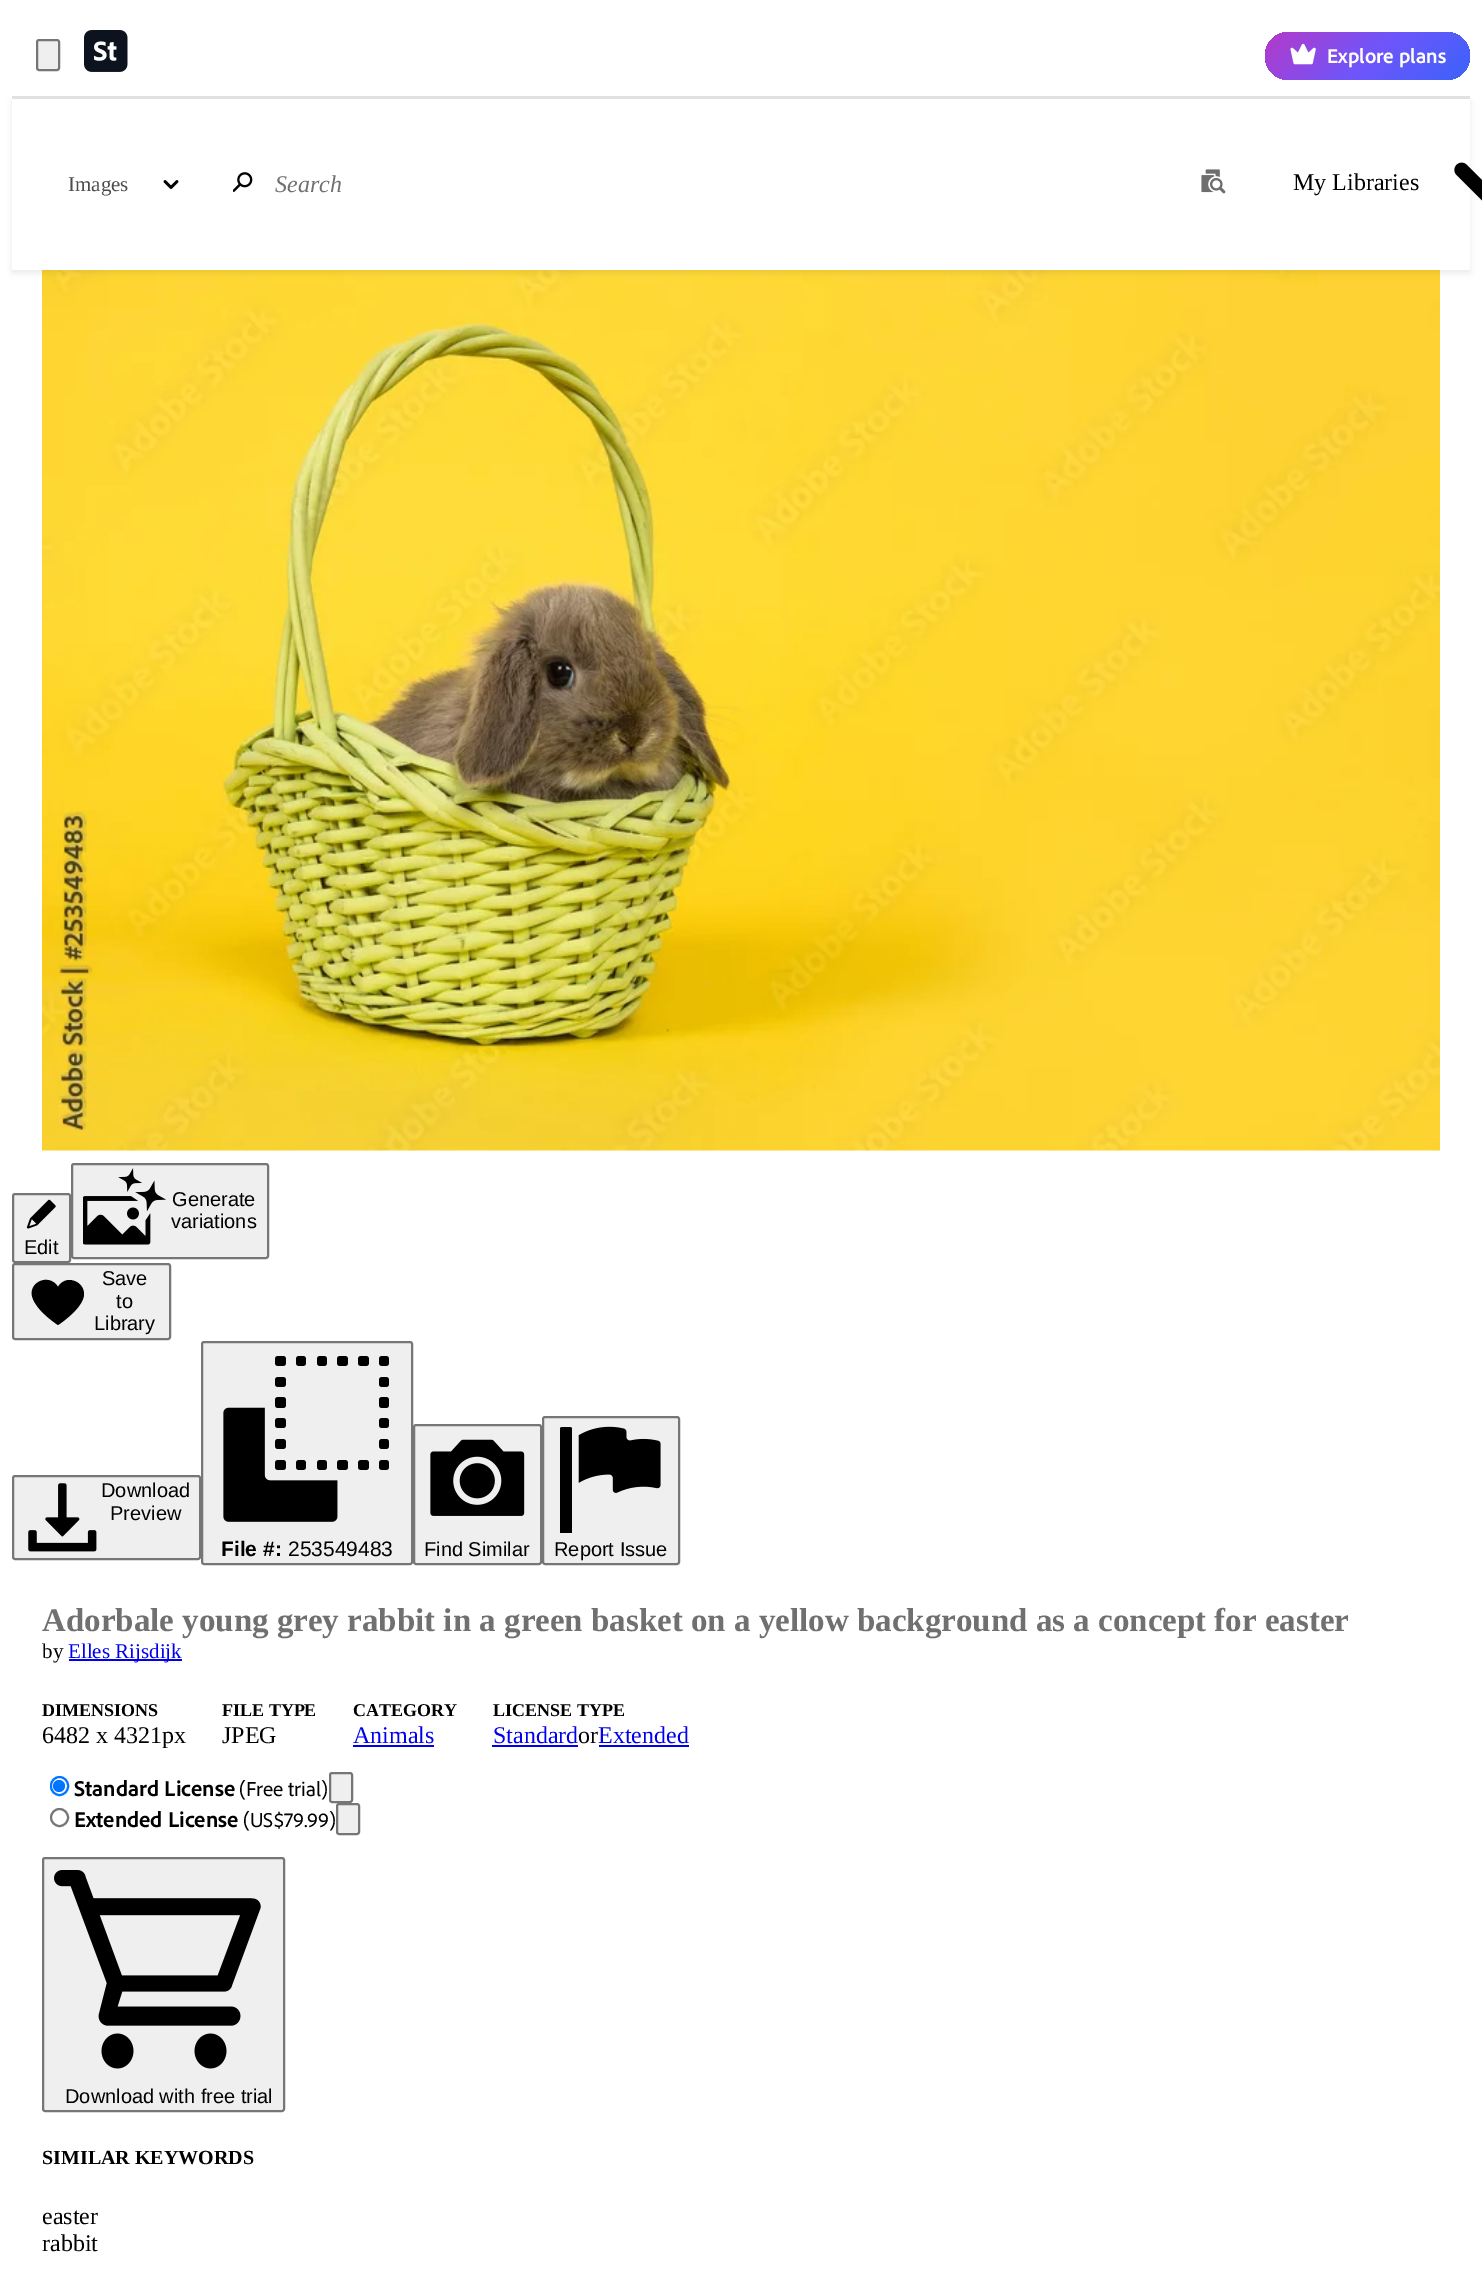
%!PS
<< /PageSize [1482 2270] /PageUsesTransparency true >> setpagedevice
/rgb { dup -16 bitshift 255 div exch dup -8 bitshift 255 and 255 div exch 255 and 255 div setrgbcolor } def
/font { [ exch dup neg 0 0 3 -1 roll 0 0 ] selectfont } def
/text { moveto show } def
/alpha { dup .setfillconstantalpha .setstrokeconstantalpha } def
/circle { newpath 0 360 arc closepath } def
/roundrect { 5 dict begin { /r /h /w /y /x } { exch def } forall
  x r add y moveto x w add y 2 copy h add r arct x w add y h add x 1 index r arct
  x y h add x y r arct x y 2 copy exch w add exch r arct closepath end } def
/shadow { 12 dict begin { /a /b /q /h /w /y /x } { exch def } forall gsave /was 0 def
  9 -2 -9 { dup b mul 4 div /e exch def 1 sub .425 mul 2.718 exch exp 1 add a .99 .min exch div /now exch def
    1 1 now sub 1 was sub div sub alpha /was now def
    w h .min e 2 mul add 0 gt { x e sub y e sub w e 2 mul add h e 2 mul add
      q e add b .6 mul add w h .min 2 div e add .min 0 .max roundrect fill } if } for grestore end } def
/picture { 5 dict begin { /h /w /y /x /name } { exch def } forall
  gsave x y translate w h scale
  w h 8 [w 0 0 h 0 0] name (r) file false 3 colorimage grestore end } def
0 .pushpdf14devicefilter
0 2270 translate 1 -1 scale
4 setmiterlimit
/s1 { /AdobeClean-Bold 21 font 16#FFFFFF rgb } def
/s2 { /LiberationSerif-Regular 21 font 16#4B4B4B rgb } def
/s3 { /LiberationSerif-Italic 24 font 16#707070 rgb } def
/s4 { /LiberationSerif-Regular 24 font 16#000000 rgb } def
/s5 { /LiberationSans-Regular 20 font 16#000000 rgb } def
/s6 { /LiberationSans-Bold 21 font 16#000000 rgb } def
/s7 { /LiberationSans-Regular 21 font 16#000000 rgb } def
/s8 { /LiberationSerif-Bold 33 font 16#707070 rgb } def
/s9 { /LiberationSerif-Regular 21 font 16#000000 rgb } def
/s10 { /LiberationSerif-Regular 21 font 16#0000EE rgb } def
/s11 { /LiberationSerif-Bold 18 font 16#000000 rgb } def
/s12 { /LiberationSerif-Regular 24 font 16#0000EE rgb } def
/s13 { /AdobeClean-Bold 22.5 font 16#000000 rgb } def
/s14 { /AdobeClean-Regular 21 font 16#000000 rgb } def
/s15 { /LiberationSerif-Bold 20 font 16#000000 rgb } def
16#FFFFFF rgb
0 0 1482 2270 rectfill
(pic7.raw) 42 270 1398 881 picture
16#343434 rgb
12 102 1458 171 0 3 0.1 shadow
16#E1E1E1 rgb
12 96 1458 3 rectfill
16#EFEFEF rgb
37 40 22 30 2 roundrect gsave fill grestore
16#767676 rgb
2 setlinewidth
stroke
(pic1.raw) 84 30 44 42 picture
gsave 1265 32 205 48 24 roundrect clip newpath
<< /ShadingType 2 /ColorSpace /DeviceRGB /Coords [1304 -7.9 1431 119] /Extend [true true] /Function << /FunctionType 3 /Domain [0 1] /Functions [<< /FunctionType 2 /Domain [0 1] /C0 [0.71 0.224 0.784] /C1 [0.443 0.333 0.98] /N 1 >> << /FunctionType 2 /Domain [0 1] /C0 [0.443 0.333 0.98] /C1 [0.231 0.388 0.984] /N 1 >>] /Bounds [0.5] /Encode [0 1 0 1] >> >> shfill grestore
(pic2.raw) 1290 43 26 22 picture
s1
(Explore plans) 1327 63 text
12 99 1458 171 rectfill
s2
(Images) 68 191 text
(pic3.raw) 163 180 16 9 picture
(pic4.raw) 233 172 20 20 picture
s3
(Search) 275 192 text
(pic5.raw) 1201 169 25 25 picture
s4
(My Libraries) 1293 190 text
(pic6.raw) 1454 162 28 39 picture
16#EFEFEF rgb
72 1164 196 94 2 roundrect gsave fill grestore
16#767676 rgb
stroke
(pic8.raw) 83 1168 83 77 picture
s5
(Generate) 172 1206 text
(variations) 171 1228 text
16#EFEFEF rgb
13 1194 57 68 2 roundrect gsave fill grestore
16#767676 rgb
stroke
(pic9.raw) 26 1199 30 30 picture
s5
(Edit) 24 1254 text
16#EFEFEF rgb
13 1264 157 75 2 roundrect gsave fill grestore
16#767676 rgb
stroke
16#000000 rgb
69 1280 moveto 65 1280 60 1283 58 1287 curveto 49 1272 26 1283 33 1299 curveto 37 1309 49 1319 58 1325 curveto 58 1325 84 1308 84 1294 curveto 84 1286 77 1280 69 1280 curveto closepath eofill
(Save) 102 1285 text
(to) 116 1308 text
(Library) 94 1330 text
16#EFEFEF rgb
13 1476 187 83 2 roundrect gsave fill grestore
16#767676 rgb
stroke
(pic10.raw) 28 1483 69 69 picture
s5
(Download) 101 1497 text
(Preview) 110 1520 text
16#EFEFEF rgb
202 1342 210 222 2 roundrect gsave fill grestore
16#767676 rgb
stroke
(pic11.raw) 223 1356 166 166 picture
s6
(File #:) 221 1556 text
s7
(253549483) 288 1556 text
16#EFEFEF rgb
414 1425 127 139 2 roundrect gsave fill grestore
16#767676 rgb
stroke
(pic12.raw) 430 1439 95 77 picture
s5
(Find Similar) 424 1556 text
16#EFEFEF rgb
543 1417 136 147 2 roundrect gsave fill grestore
16#767676 rgb
stroke
(pic13.raw) 560 1426 101 107 picture
s5
(Report Issue) 554 1556 text
s8
(Adorbale young grey rabbit in a green basket on a yellow background as a concept for easter) 42 1631 text
s9
(by) 42 1658 text
16#0000EE rgb
69 1659 113 2 rectfill
(Elles Rijsdijk) 68 1658 text
s11
(DIMENSIONS) 42 1716 text
s4
(6482 x 4321px) 42 1743 text
s11
(FILE TYPE) 222 1716 text
s4
(JPEG) 222 1743 text
s11
(CATEGORY) 353 1716 text
s12
(Animals) 353 1743 text
353 1745 81 2 rectfill
s11
(LICENSE TYPE) 493 1716 text
s12
(Standard) 493 1743 text
s4
(or) 578 1743 text
16#0000EE rgb
492 1745 86 2 rectfill
599 1745 90 2 rectfill
(Extended) 598 1743 text
16#0075FF rgb
51 1777 17 18 8.5 roundrect stroke
59 1786 6 circle fill
s13
(Standard License) 74 1796 text
s14
(\(Free trial\)) 239 1796 text
16#EFEFEF rgb
330 1773 22 29 2 roundrect gsave fill grestore
16#767676 rgb
stroke
59.5 1817.5 8.5 circle stroke
s13
(Extended License) 74 1827 text
s14
(\(US$79.99\)) 243 1827 text
16#EFEFEF rgb
337 1804 22 30 2 roundrect gsave fill grestore
16#767676 rgb
stroke
16#EFEFEF rgb
43 1858 241 253 2 roundrect gsave fill grestore
16#767676 rgb
stroke
(pic14.raw) 54 1870 207 199 picture
s5
(Download with free trial) 65 2103 text
s15
(SIMILAR KEYWORDS) 42 2164 text
s4
(easter) 42 2224 text
(rabbit) 42 2251 text
.poppdf14devicefilter showpage
